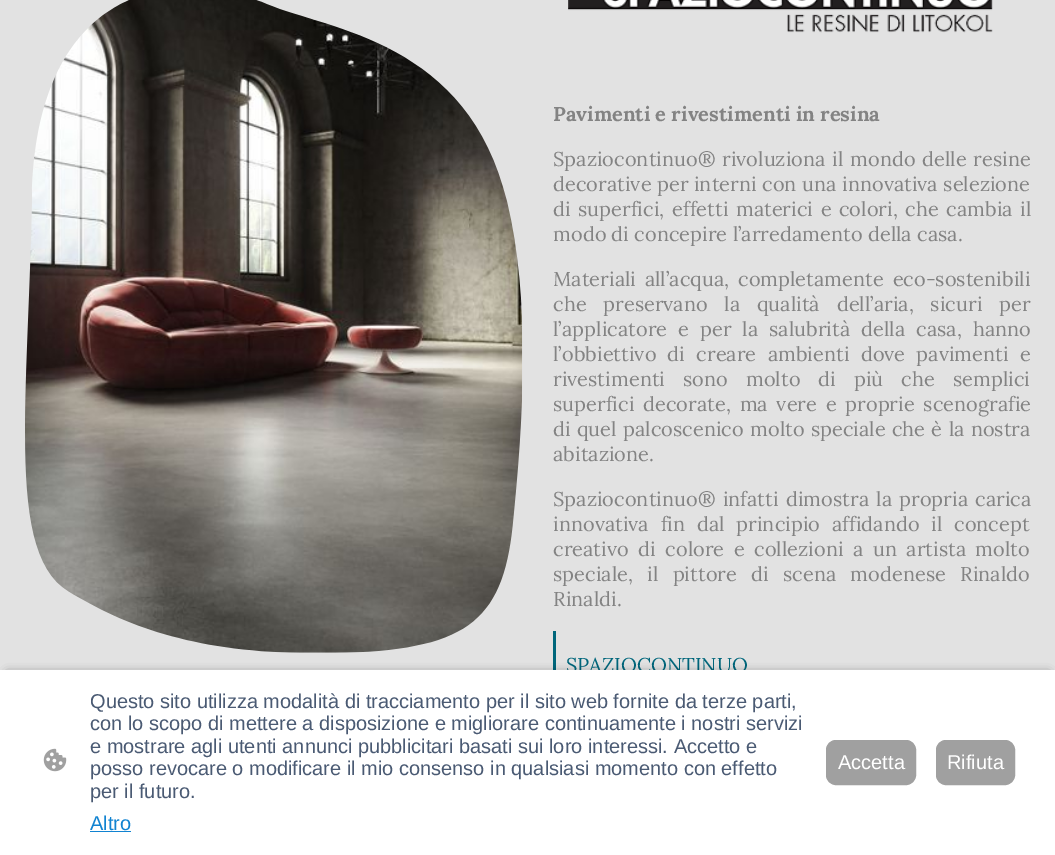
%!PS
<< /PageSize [1055 855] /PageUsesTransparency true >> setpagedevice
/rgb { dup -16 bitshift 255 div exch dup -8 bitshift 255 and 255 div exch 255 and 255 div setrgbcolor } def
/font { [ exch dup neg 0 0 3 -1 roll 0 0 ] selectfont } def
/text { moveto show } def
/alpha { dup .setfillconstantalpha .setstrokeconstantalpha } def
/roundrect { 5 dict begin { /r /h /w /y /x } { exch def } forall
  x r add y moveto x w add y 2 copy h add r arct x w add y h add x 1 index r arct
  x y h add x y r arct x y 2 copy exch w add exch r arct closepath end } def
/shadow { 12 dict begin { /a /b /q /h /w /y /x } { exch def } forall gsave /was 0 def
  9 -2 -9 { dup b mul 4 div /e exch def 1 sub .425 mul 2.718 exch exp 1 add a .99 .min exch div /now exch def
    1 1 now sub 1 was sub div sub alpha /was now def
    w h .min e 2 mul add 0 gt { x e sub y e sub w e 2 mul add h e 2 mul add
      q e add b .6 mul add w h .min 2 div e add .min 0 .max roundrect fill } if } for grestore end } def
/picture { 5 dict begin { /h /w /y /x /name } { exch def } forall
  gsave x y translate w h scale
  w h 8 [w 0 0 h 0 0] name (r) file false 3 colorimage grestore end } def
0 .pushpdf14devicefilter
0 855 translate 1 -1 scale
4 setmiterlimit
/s1 { /Lora-Bold 20 font 16#838383 rgb } def
/s2 { /Lora-Regular 20 font 16#838383 rgb } def
/s3 { /Lora-Regular 20 font 16#00667B rgb } def
/s4 { /LiberationSans-Regular 20 font 16#4A5A73 rgb } def
/s5 { /LiberationSans-Regular 20 font 16#1183D1 rgb } def
/s6 { /LiberationSans-Regular 20 font 16#FFFFFF rgb } def
16#E2E2E2 rgb
0 0 1055 855 rectfill
(pic1.raw) 25 0 498 653 picture
(pic2.raw) 568 0 425 33 picture
s1
(Pavimenti e rivestimenti in resina) 553 121 text
/Lora-Regular 20 font
553 166 moveto 1.5 0 32 (Spaziocontinuo® rivoluziona il mondo delle resine) widthshow
553 191 moveto 0.25 0 32 (decorative per interni con una innovativa selezione) widthshow
553 216 moveto 2.25 0 32 (di superfici, effetti materici e colori, che cambia il) widthshow
(modo di concepire l’arredamento della casa.) 553 241 text
553 286 moveto 3.5 0 32 (Materiali all’acqua, completamente eco-sostenibili) widthshow
553 311 moveto 11.5 0 32 (che preservano la qualità dell’aria, sicuri per) widthshow
553 336 moveto 5.75 0 32 (l’applicatore e per la salubrità della casa, hanno) widthshow
553 361 moveto 6 0 32 (l’obbiettivo di creare ambienti dove pavimenti e) widthshow
553 386 moveto 12.75 0 32 (rivestimenti sono molto di più che semplici) widthshow
553 411 moveto 3.5 0 32 (superfici decorate, ma vere e proprie scenografie) widthshow
553 436 moveto 1 0 32 (di quel palcoscenico molto speciale che è la nostra) widthshow
(abitazione.) 553 461 text
553 506 moveto 2 0 32 (Spaziocontinuo® infatti dimostra la propria carica) widthshow
553 531 moveto 6.5 0 32 (innovativa fin dal principio affidando il concept) widthshow
553 556 moveto 4.25 0 32 (creativo di colore e collezioni a un artista molto) widthshow
553 581 moveto 9 0 32 (speciale, il pittore di scena modenese Rinaldo) widthshow
(Rinaldi.) 553 606 text
16#00667B rgb
553 631 3 39 rectfill
(SPAZIOCONTINUO) 566 672 text
16#000000 rgb
8 674 1040 170 0 5 0.63 shadow
16#FFFFFF rgb
0 670 1055 185 rectfill
(pic3.raw) 43 748 24 24 picture
s4
(Questo sito utilizza modalità di tracciamento per il sito web fornite da terze parti,) 90 708 text
(con lo scopo di mettere a disposizione e migliorare continuamente i nostri servizi) 90 730 text
(e mostrare agli utenti annunci pubblicitari basati sui loro interessi. Accetto e) 90 753 text
(posso revocare o modificare il mio consenso in qualsiasi momento con effetto) 90 775 text
(per il futuro.) 90 798 text
s5
(Altro) 90 830 text
90 831 41 1 rectfill
16#A0A0A0 rgb
826.5 740.5 89 44 9.5 roundrect gsave fill grestore
stroke
s6
(Accetta) 838 769 text
16#A0A0A0 rgb
936.5 740.5 78 44 9.5 roundrect gsave fill grestore
stroke
s6
(Rifiuta) 947 769 text
.poppdf14devicefilter showpage
